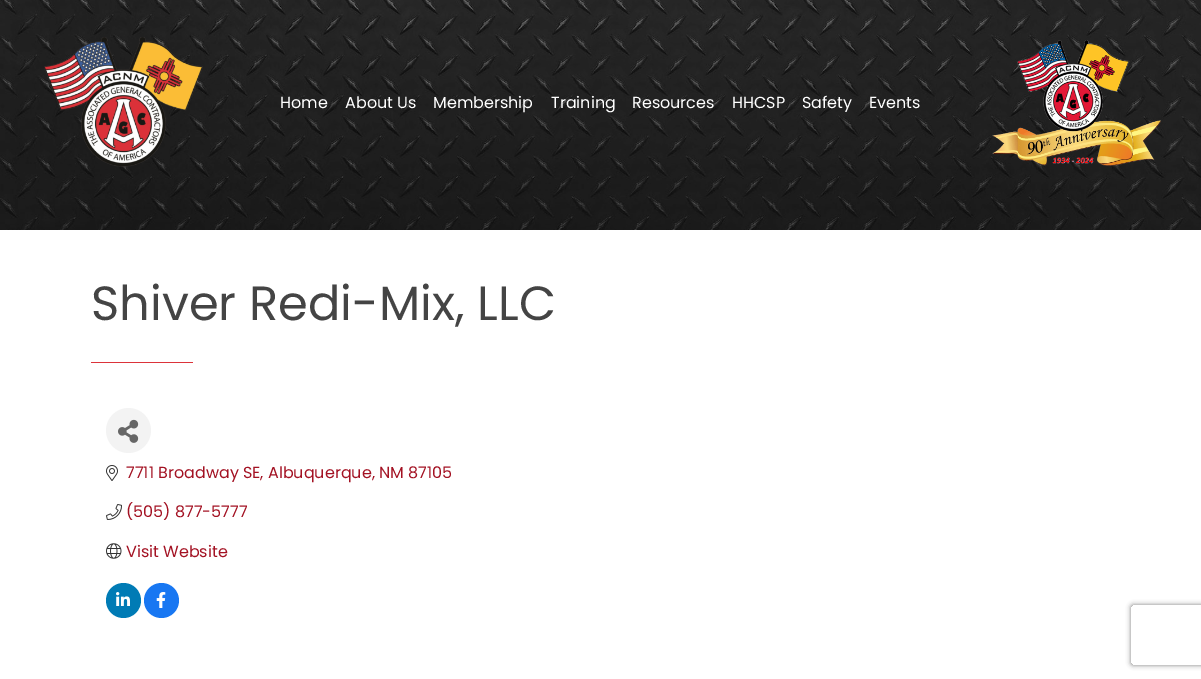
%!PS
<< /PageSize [1201 679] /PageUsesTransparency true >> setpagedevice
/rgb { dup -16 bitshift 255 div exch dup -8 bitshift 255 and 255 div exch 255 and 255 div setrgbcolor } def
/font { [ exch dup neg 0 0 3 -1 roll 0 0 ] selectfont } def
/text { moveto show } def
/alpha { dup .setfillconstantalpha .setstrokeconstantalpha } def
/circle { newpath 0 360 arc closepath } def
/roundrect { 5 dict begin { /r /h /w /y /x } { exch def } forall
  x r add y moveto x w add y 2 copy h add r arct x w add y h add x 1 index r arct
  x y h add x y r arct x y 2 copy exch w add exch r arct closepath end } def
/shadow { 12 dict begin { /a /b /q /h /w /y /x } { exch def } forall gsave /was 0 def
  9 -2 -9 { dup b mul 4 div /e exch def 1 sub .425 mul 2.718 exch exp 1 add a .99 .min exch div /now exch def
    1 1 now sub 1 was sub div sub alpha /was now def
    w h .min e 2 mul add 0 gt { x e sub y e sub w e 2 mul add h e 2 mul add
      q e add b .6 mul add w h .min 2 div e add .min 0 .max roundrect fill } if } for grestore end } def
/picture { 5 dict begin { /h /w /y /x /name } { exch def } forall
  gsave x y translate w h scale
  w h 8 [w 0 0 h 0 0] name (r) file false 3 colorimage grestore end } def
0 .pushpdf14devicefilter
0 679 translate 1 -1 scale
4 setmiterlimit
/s1 { /Poppins-Regular 16 font 16#FFFFFF rgb } def
/s2 { /Poppins-Regular 48 font 16#444444 rgb } def
/s3 { /Poppins-Regular 16 font 16#A31223 rgb } def
16#FFFFFF rgb
0 0 1201 679 rectfill
(pic3.raw) 0 0 1201 230 picture
(pic1.raw) 44 37 159 130 picture
s1
(Home) 280 108 text
(About Us) 345 108 text
(Membership) 433 108 text
(Training) 551 108 text
(Resources) 632 108 text
(HHCSP) 732 108 text
(Safety) 802 108 text
(Events) 869 108 text
(pic2.raw) 992 40 169 126 picture
s2
(Shiver Redi-Mix, LLC) 91 320 text
16#DC333A rgb
91 362 102 1 rectfill
16#F3F3F3 rgb
128.5 430.5 22.5 circle fill
(pic4.raw) 118 419 21 24 picture
(pic5.raw) 106 465 12 16 picture
s3
(7711 Broadway SE, Albuquerque, NM 87105) 126 478 text
(pic6.raw) 106 504 16 16 picture
(\(505\) 877-5777) 126 517 text
(pic7.raw) 106 543 16 16 picture
(Visit Website) 126 557 text
16#007BB5 rgb
123.5 600.5 17.5 circle fill
(pic8.raw) 116 592 14 14 picture
16#1877F2 rgb
161.5 600.5 17.5 circle fill
(pic9.raw) 156 592 10 16 picture
gsave
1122 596 moveto 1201 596 lineto 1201 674 lineto 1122 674 lineto closepath 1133 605 moveto 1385 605 lineto 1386 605 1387 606 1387 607 curveto 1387 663 lineto 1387 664 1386 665 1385 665 curveto 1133 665 lineto 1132 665 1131 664 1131 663 curveto 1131 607 lineto 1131 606 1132 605 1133 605 curveto closepath eoclip newpath
16#808080 rgb
1131 605 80 60 2 2.5 1 shadow
grestore
.poppdf14devicefilter showpage
